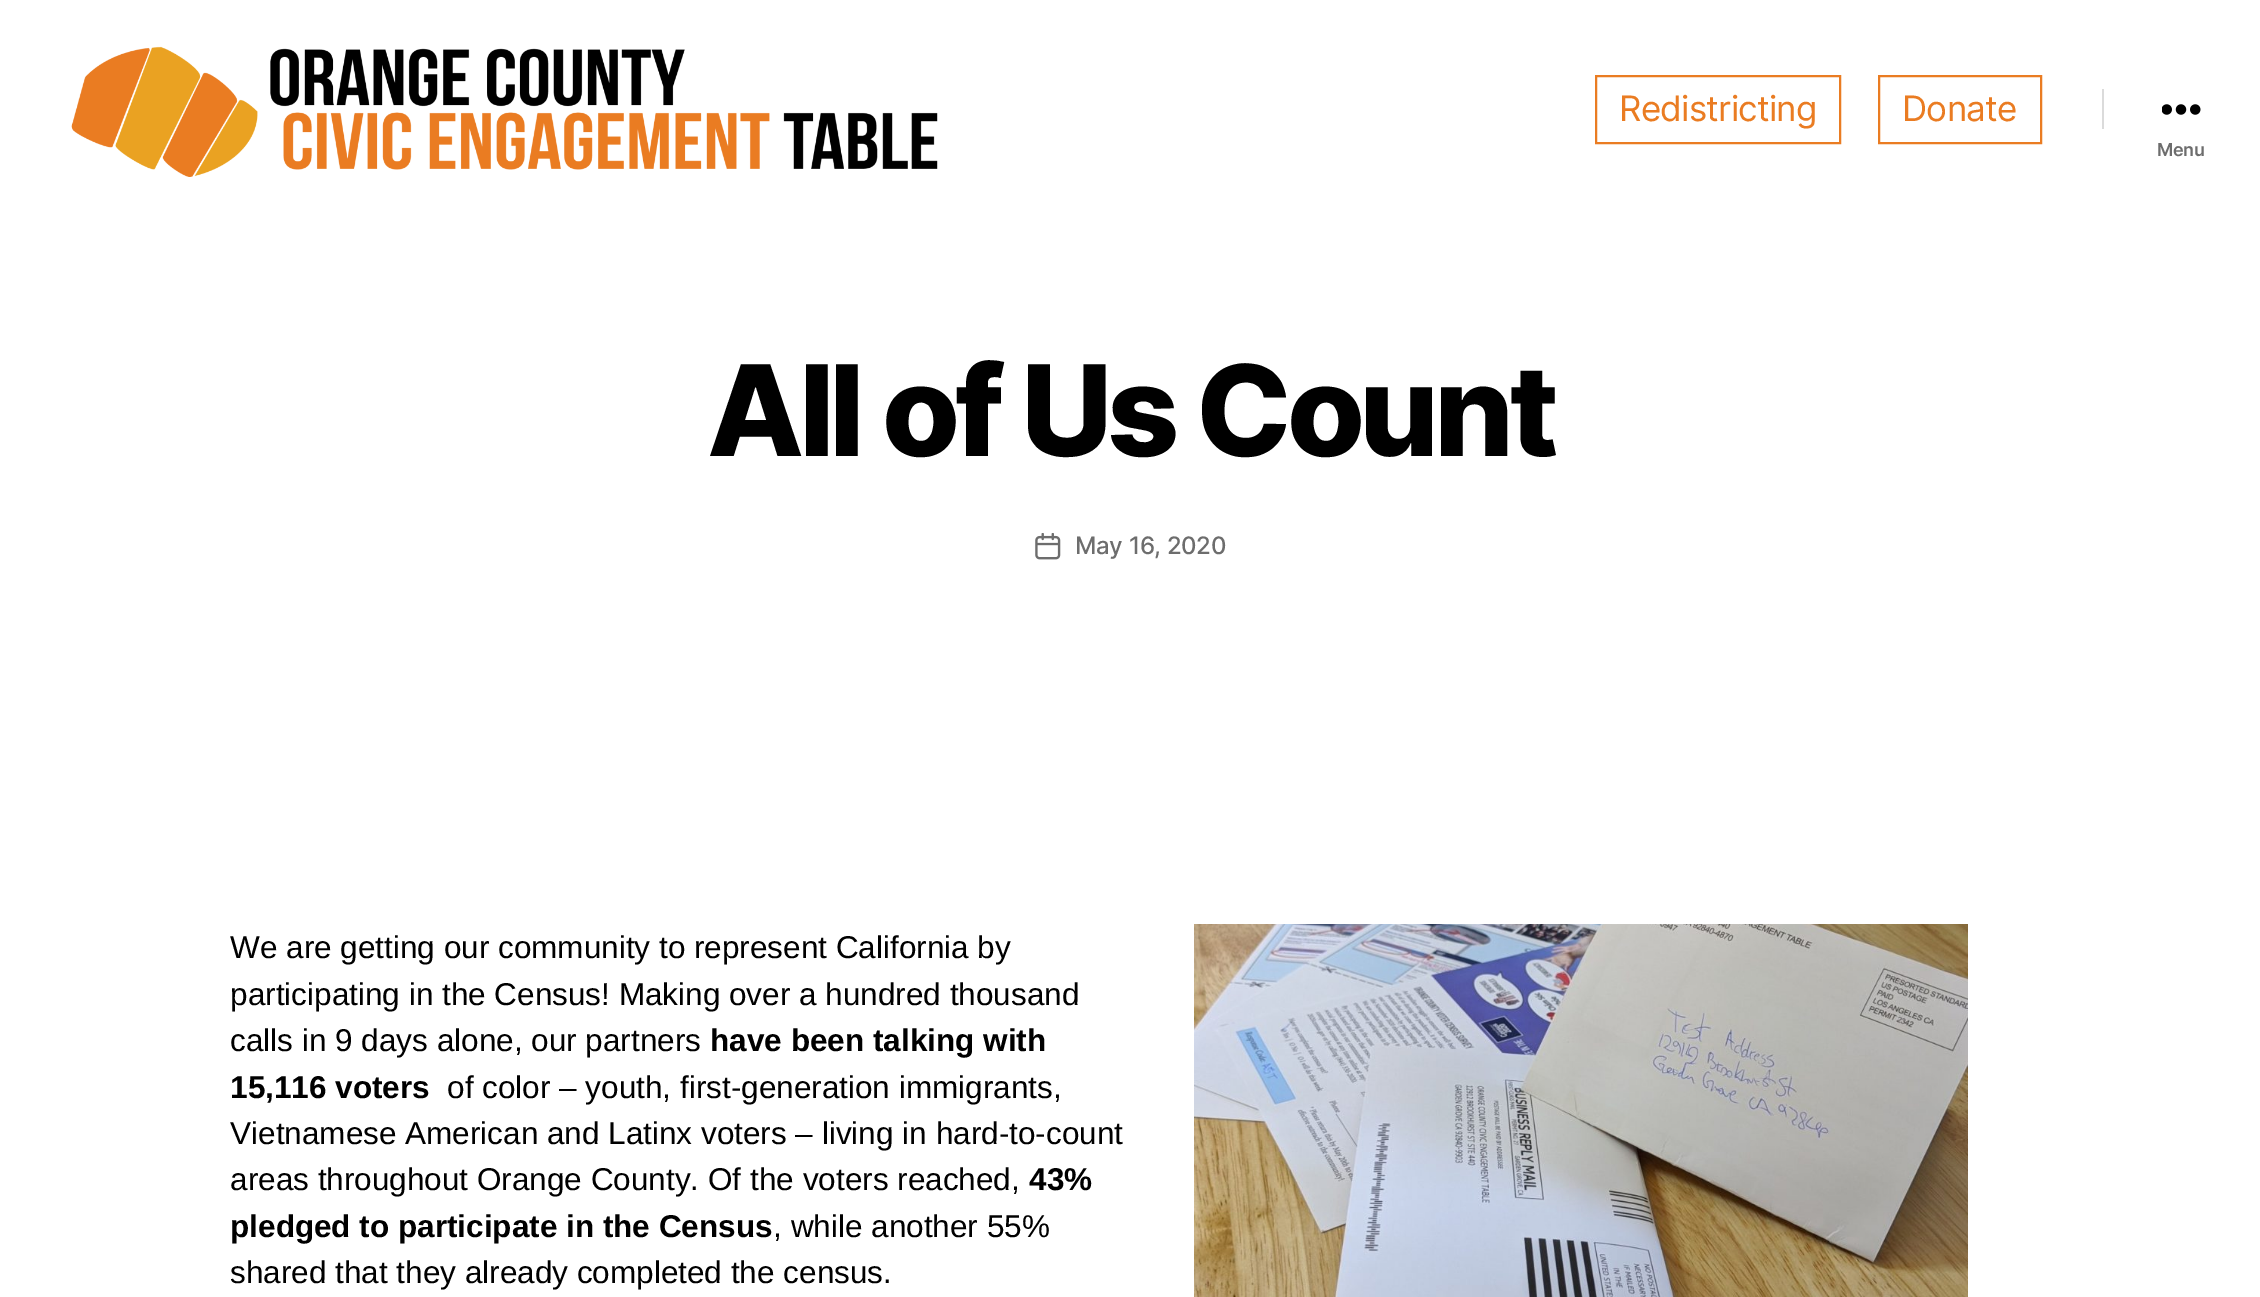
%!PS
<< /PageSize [2260 1297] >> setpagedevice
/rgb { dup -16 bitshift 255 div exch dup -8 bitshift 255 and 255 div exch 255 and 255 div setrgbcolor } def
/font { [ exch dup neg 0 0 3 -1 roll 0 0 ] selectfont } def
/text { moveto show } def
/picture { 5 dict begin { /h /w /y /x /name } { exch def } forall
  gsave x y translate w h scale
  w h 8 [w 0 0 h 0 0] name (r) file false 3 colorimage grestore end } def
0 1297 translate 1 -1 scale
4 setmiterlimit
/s1 { /LiberationSans-Regular 31.5 font 16#000000 rgb } def
/s2 { /LiberationSans-Bold 31.5 font 16#000000 rgb } def
16#FFFFFF rgb
0 0 2260 1297 rectfill
(pic1.raw) 71 46 867 131 picture
16#EA7C22 rgb
2 setlinewidth
1596 76 244 67 rectstroke
/Inter-Regular 35 font
1619 121 moveto -0.75 0 (Redistricting) ashow
1879 76 162 67 rectstroke
1902 121 moveto -0.75 0 (Donate) ashow
16#DBDBDB rgb
2102 89 2 40 rectfill
(pic2.raw) 2162 104 39 11 picture
/Inter-SemiBold 18 font
16#6D6D6D rgb
2157 156 moveto -0.4 0 (Menu) ashow
/Inter-ExtraBold 126 font
16#000000 rgb
707 456 moveto -5.25 0 (All of Us Count) ashow
(pic3.raw) 1035 533 26 27 picture
/Inter-Medium 24 font
16#6D6D6D rgb
1075 554 moveto -0.4 0 (May 16, 2020) ashow
s1
(We are getting our community to represent California by) 230 958 text
(participating in the Census! Making over a hundred thousand) 230 1005 text
(calls in 9 days alone, our partners) 230 1051 text
s2
(have been talking with) 710 1051 text
(15,116 voters) 230 1098 text
s1
(of color – youth, first-generation immigrants,) 447 1098 text
(Vietnamese American and Latinx voters – living in hard-to-count) 230 1144 text
(areas throughout Orange County. Of the voters reached,) 230 1190 text
s2
(43%) 1029 1190 text
(pledged to participate in the Census) 230 1237 text
s1
(, while another 55%) 773 1237 text
(shared that they already completed the census.) 230 1283 text
(pic4.raw) 1194 924 774 373 picture
showpage
